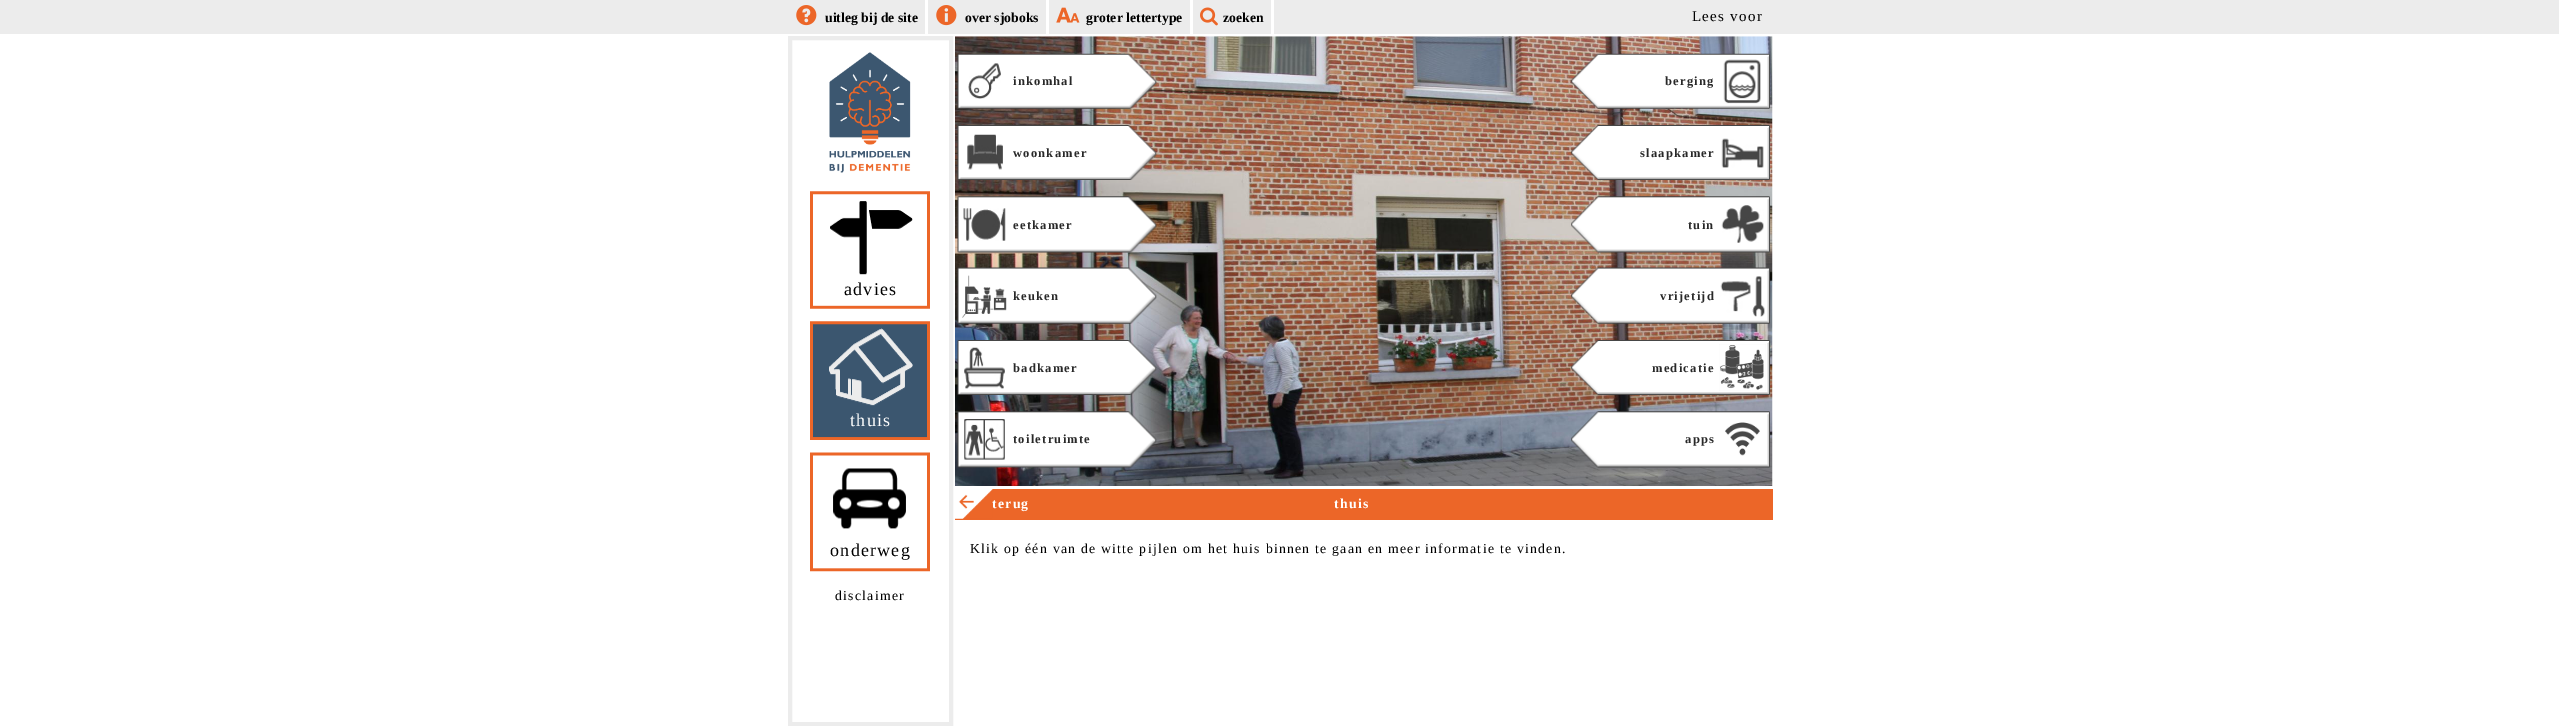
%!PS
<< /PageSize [2559 726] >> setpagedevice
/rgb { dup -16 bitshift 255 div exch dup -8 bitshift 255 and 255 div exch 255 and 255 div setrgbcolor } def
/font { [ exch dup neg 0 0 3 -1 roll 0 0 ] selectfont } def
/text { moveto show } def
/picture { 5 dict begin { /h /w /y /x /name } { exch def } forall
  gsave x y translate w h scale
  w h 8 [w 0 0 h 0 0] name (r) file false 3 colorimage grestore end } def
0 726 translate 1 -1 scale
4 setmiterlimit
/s1 { /LiberationSerif-Bold 13.75 font 16#000000 rgb } def
16#FFFFFF rgb
0 0 2559 726 rectfill
16#ECECEC rgb
0 0 2559 34 rectfill
16#FFFFFF rgb
925 0 3 34 rectfill
(pic1.raw) 796 5 21 21 picture
s1
(uitleg bij de site) 825 22 text
16#FFFFFF rgb
1046 0 3 34 rectfill
(pic2.raw) 936 5 21 21 picture
s1
(over sjoboks) 965 22 text
16#FFFFFF rgb
1190 0 3 34 rectfill
(pic3.raw) 1056 7 24 16 picture
s1
(groter lettertype) 1086 22 text
16#FFFFFF rgb
1271 0 3 34 rectfill
(pic4.raw) 1200 7 18 19 picture
s1
(zoeken) 1223 22 text
/LiberationSerif-Regular 15 font
1692 21 moveto 1.25 0 (Lees voor) ashow
16#ECECEC rgb
4 setlinewidth
790 38 161 686 rectstroke
(pic5.raw) 829 52 82 121 picture
(pic6.raw) 810 191 120 118 picture
/LiberationSerif-Regular 18 font
16#000000 rgb
844 295 moveto 1.25 0 (advies) ashow
(pic7.raw) 810 321 120 119 picture
16#FFFFFF rgb
850 426 moveto 1.25 0 (thuis) ashow
(pic8.raw) 810 452 120 120 picture
16#000000 rgb
830 556 moveto 1.25 0 (onderweg) ashow
/LiberationSerif-Regular 13.75 font
835 600 moveto 1.25 0 (disclaimer) ashow
(pic9.raw) 955 36 818 450 picture
(pic11.raw) 957 53 200 56 picture
(pic10.raw) 968 63 33 36 picture
/LiberationSerif-Bold 12.5 font
16#282828 rgb
1013 85 moveto 1.25 0 (inkomhal) ashow
(pic13.raw) 957 125 200 55 picture
(pic12.raw) 967 134 36 36 picture
1013 157 moveto 1.25 0 (woonkamer) ashow
(pic15.raw) 957 196 200 57 picture
(pic14.raw) 963 208 43 33 picture
1013 229 moveto 1.25 0 (eetkamer) ashow
(pic17.raw) 957 267 200 57 picture
(pic16.raw) 962 275 45 43 picture
1013 300 moveto 1.25 0 (keuken) ashow
(pic19.raw) 957 340 200 55 picture
(pic18.raw) 964 347 41 42 picture
1013 372 moveto 1.25 0 (badkamer) ashow
(pic21.raw) 957 411 200 57 picture
(pic20.raw) 964 419 41 41 picture
1013 443 moveto 1.25 0 (toiletruimte) ashow
(pic22.raw) 1571 53 199 56 picture
1665 85 moveto 1.25 0 (berging) ashow
(pic23.raw) 1723 59 38 45 picture
(pic24.raw) 1571 125 199 55 picture
1640 157 moveto 1.25 0 (slaapkamer) ashow
(pic25.raw) 1721 138 43 30 picture
(pic26.raw) 1571 196 199 57 picture
1688 229 moveto 1.25 0 (tuin) ashow
(pic27.raw) 1721 205 43 38 picture
(pic28.raw) 1571 267 199 57 picture
1660 300 moveto 1.25 0 (vrijetijd) ashow
(pic29.raw) 1720 276 45 41 picture
(pic30.raw) 1571 340 199 55 picture
1652 372 moveto 1.25 0 (medicatie) ashow
(pic31.raw) 1719 344 47 47 picture
(pic32.raw) 1571 411 199 57 picture
1685 443 moveto 1.25 0 (apps) ashow
(pic33.raw) 1725 422 35 34 picture
16#EC6628 rgb
955 489 818 31 rectfill
(pic34.raw) 955 489 38 30 picture
/LiberationSerif-Bold 13.75 font
16#FFFFFF rgb
992 508 moveto 1.25 0 (terug) ashow
1334 508 moveto 1.25 0 (thuis) ashow
/LiberationSerif-Regular 13.75 font
16#000000 rgb
970 553 moveto 1.25 0 (Klik op één van de witte pijlen om het huis binnen te gaan en meer informatie te vinden.) ashow
showpage
